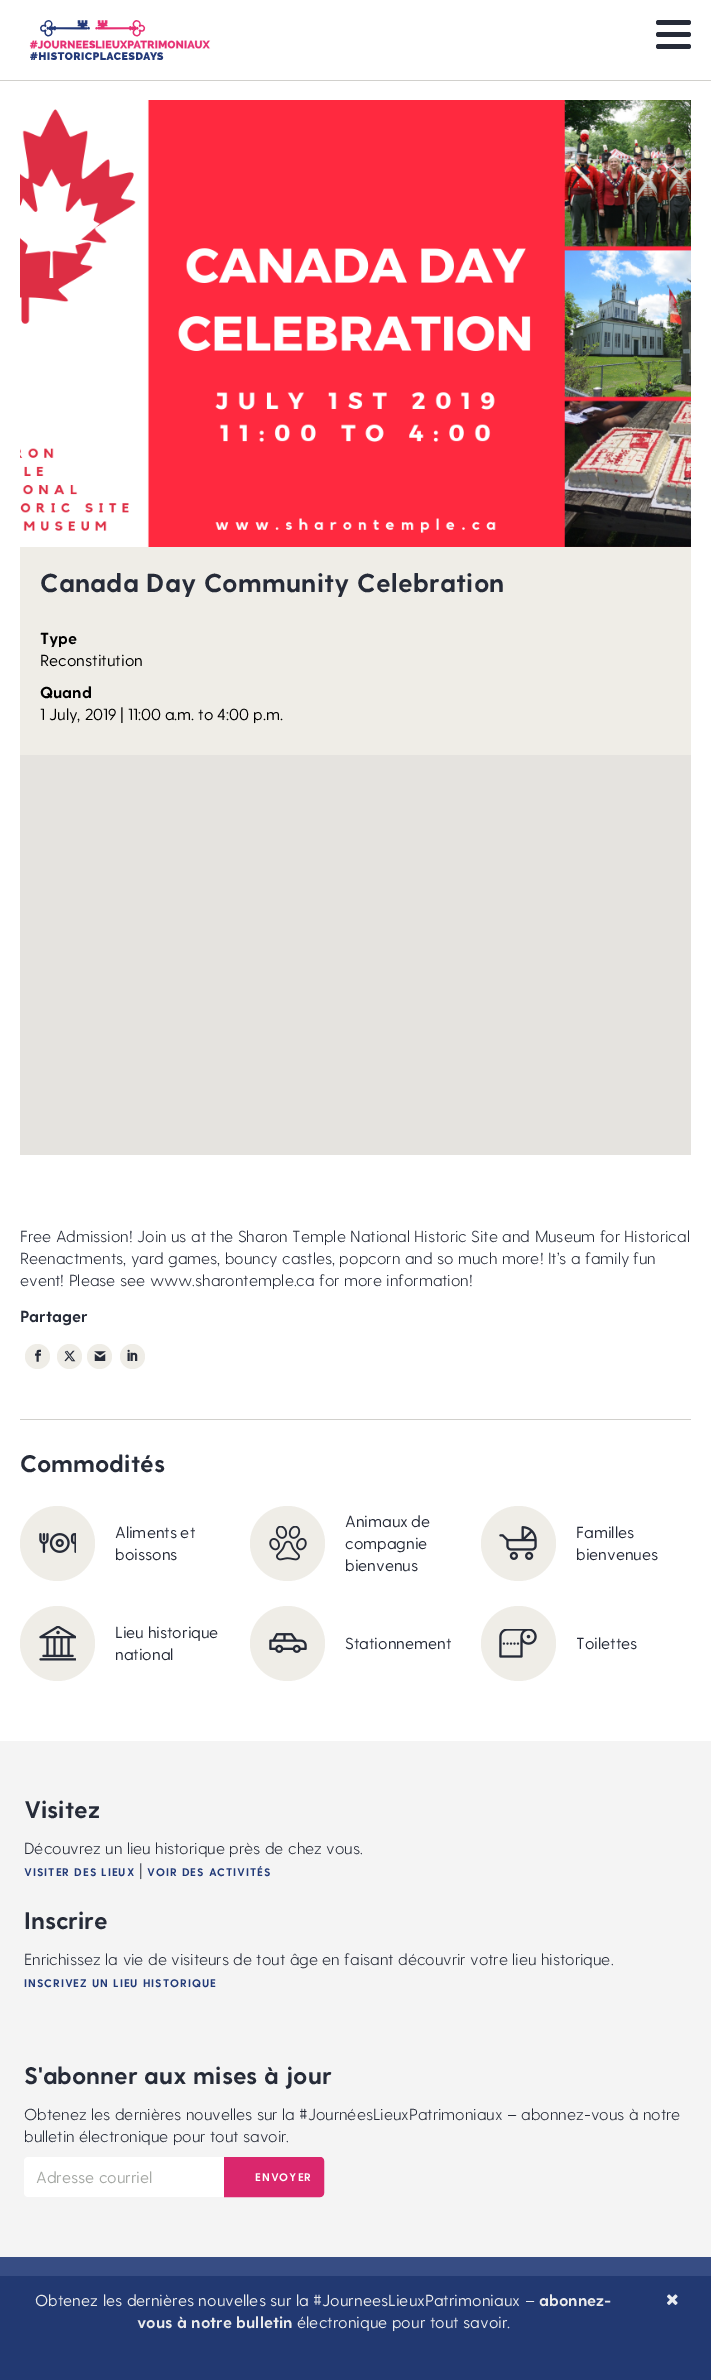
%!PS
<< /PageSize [711 2380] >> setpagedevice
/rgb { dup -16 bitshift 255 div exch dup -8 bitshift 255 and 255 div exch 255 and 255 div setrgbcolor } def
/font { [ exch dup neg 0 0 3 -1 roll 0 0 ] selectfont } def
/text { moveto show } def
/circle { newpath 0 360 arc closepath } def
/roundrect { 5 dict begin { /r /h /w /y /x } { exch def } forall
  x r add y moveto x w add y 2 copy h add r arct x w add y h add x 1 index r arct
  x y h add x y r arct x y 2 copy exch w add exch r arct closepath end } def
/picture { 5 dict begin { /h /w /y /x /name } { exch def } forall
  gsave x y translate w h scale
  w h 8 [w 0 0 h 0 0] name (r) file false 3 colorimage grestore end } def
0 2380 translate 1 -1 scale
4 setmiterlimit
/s1 { /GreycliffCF-Bold 16 font 16#000000 rgb } def
/s2 { /GreycliffCF-Regular 16 font 16#000000 rgb } def
/s3 { /GreycliffCF-Light 16 font 16#262B38 rgb } def
/s4 { /GreycliffCF-Bold 16 font 16#262B38 rgb } def
/s5 { /GreycliffCF-Bold 24 font 16#262B38 rgb } def
/s6 { /GreycliffCF-Regular 16 font 16#262B38 rgb } def
/s7 { /GreycliffCF-Regular 16 font 16#A6A9A5 rgb } def
/s8 { /GreycliffCF-Regular 16 font 16#E9EAEB rgb } def
/s9 { /GreycliffCF-Bold 16 font 16#E9EAEB rgb } def
16#FFFFFF rgb
0 0 711 2380 rectfill
16#D1D0CC rgb
0 80 711 1 rectfill
(pic1.raw) 29 20 182 40 picture
16#262B38 rgb
656 20 35 5 2.5 roundrect fill
656 32 35 5 2.5 roundrect fill
656 44 35 5 2.5 roundrect fill
(pic2.raw) 20 100 671 447 picture
16#EFEDE7 rgb
20 547 671 208 rectfill
/GreycliffCF-Bold 26 font
16#262B38 rgb
40 592 moveto 0.25 0 (Canada Day Community Celebration) ashow
s1
(Type) 40 644 text
s2
(Reconstitution) 40 666 text
s1
(Quand) 40 698 text
/GreycliffCF-Regular 16 font
40 720 moveto -0.5 0 32 (1 July, 2019 | 11:00 a.m. to 4:00 p.m.) widthshow
16#E5E3DF rgb
20 755 671 400 rectfill
16#D1D0CC rgb
20 1419 671 1 rectfill
s3
(Free Admission! Join us at the Sharon Temple National Historic Site and Museum for Historical) 20 1242 text
(Reenactments, yard games, bouncy castles, popcorn and so much more! It’s a family fun) 20 1264 text
(event! Please see www.sharontemple.ca for more information!) 20 1286 text
s4
(Partager) 20 1322 text
16#EFEDE7 rgb
37.5 1356.5 12.5 circle fill
(pic3.raw) 35 1349 6 13 picture
69.5 1356.5 12.5 circle fill
(pic4.raw) 64 1350 12 12 picture
99.5 1356.5 12.5 circle fill
(pic5.raw) 94 1351 12 10 picture
132.5 1356.5 12.5 circle fill
(pic6.raw) 127 1349 11 12 picture
s5
(Commodités) 20 1472 text
16#EFEDE7 rgb
57.5 1543.5 37.5 circle fill
(pic7.raw) 39 1533 37 20 picture
/GreycliffCF-Regular 16 font
16#262B38 rgb
115 1538 moveto -1 0 32 (Aliments et) widthshow
(boissons) 115 1560 text
16#EFEDE7 rgb
287.5 1543.5 37.5 circle fill
(pic8.raw) 269 1526 38 35 picture
16#262B38 rgb
345 1527 moveto -1 0 32 (Animaux de) widthshow
(compagnie) 345 1549 text
(bienvenus) 345 1571 text
16#EFEDE7 rgb
518.5 1543.5 37.5 circle fill
(pic9.raw) 499 1526 38 34 picture
s6
(Familles) 576 1538 text
(bienvenues) 576 1560 text
16#EFEDE7 rgb
57.5 1643.5 37.5 circle fill
(pic10.raw) 39 1626 37 35 picture
16#262B38 rgb
115 1638 moveto -1 0 32 (Lieu historique) widthshow
(national) 115 1660 text
16#EFEDE7 rgb
287.5 1643.5 37.5 circle fill
(pic11.raw) 269 1633 38 20 picture
s6
(Stationnement) 345 1649 text
16#EFEDE7 rgb
518.5 1643.5 37.5 circle fill
(pic12.raw) 499 1629 38 29 picture
s6
(Toilettes) 576 1649 text
16#F4F4F4 rgb
0 1741 711 516 rectfill
16#374D84 rgb
0 2257 711 19 rectfill
s5
(Visitez) 24 1818 text
s3
(Découvrez un lieu historique près de chez vous.) 24 1854 text
/GreycliffCF-Bold 11 font
16#223A78 rgb
24 1876 moveto 1 0 (VISITER DES LIEUX) ashow
s3
(|) 139 1876 text
/GreycliffCF-Bold 11 font
16#223A78 rgb
147 1876 moveto 1 0 (VOIR DES ACTIVITÉS) ashow
s5
(Inscrire) 24 1929 text
s3
(Enrichissez la vie de visiteurs de tout âge en faisant découvrir votre lieu historique.) 24 1965 text
/GreycliffCF-Bold 11 font
16#223A78 rgb
24 1987 moveto 1 0 (INSCRIVEZ UN LIEU HISTORIQUE) ashow
s5
(S'abonner aux mises à jour) 24 2084 text
s3
(Obtenez les dernières nouvelles sur la #JournéesLieuxPatrimoniaux – abonnez-vous à notre) 24 2120 text
(bulletin électronique pour tout savoir.) 24 2142 text
16#FFFFFF rgb
28 2157 moveto 224 2157 lineto 224 2197 lineto 28 2197 lineto 26 2197 24 2195 24 2193 curveto 24 2161 lineto 24 2159 26 2157 28 2157 curveto closepath fill
s7
(Adresse courriel) 36 2183 text
16#DA276D rgb
224.5 2157.5 moveto 320 2157.5 lineto 322 2157.5 323.5 2159 323.5 2161 curveto 323.5 2193 lineto 323.5 2195 322 2196.5 320 2196.5 curveto 224.5 2196.5 lineto closepath gsave fill grestore
stroke
/GreycliffCF-Bold 11 font
16#FFFFFF rgb
255 2181 moveto 1 0 (ENVOYER) ashow
16#223972 rgb
0 2276 711 104 rectfill
s8
(Obtenez les dernières nouvelles sur la #JourneesLieuxPatrimoniaux –) 35 2306 text
s9
(abonnez-) 539 2306 text
(vous à notre bulletin) 137 2328 text
s8
(électronique pour tout savoir.) 297 2328 text
(pic13.raw) 667 2294 11 11 picture
showpage
